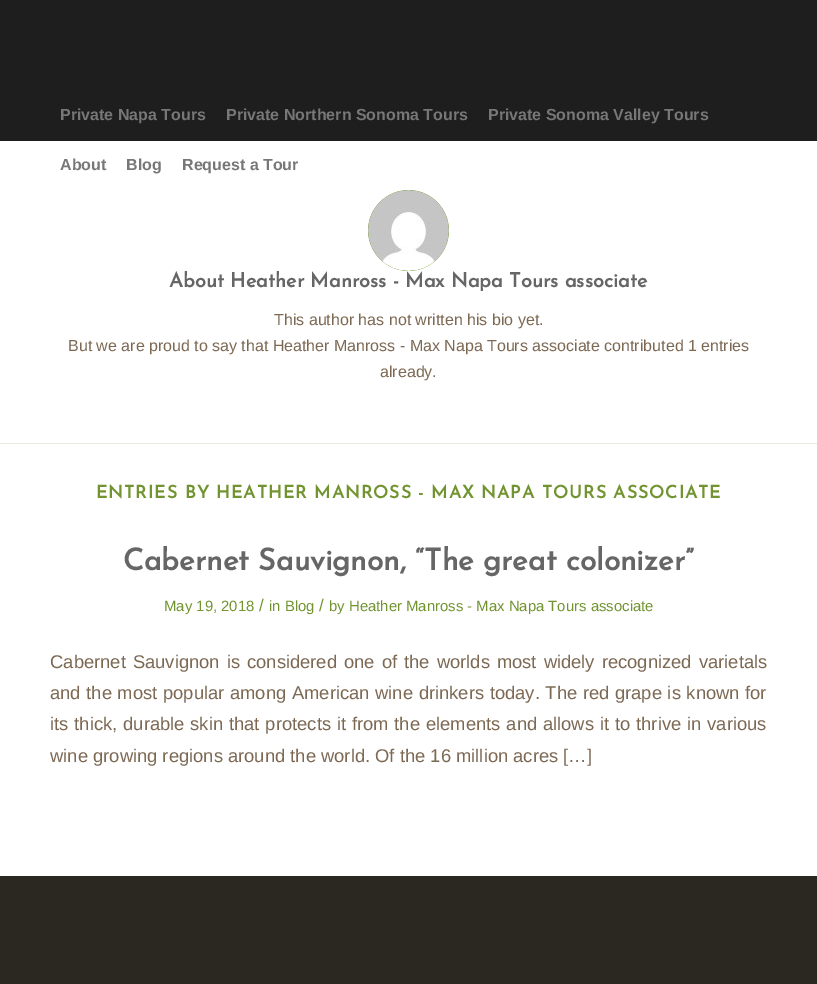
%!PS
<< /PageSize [817 984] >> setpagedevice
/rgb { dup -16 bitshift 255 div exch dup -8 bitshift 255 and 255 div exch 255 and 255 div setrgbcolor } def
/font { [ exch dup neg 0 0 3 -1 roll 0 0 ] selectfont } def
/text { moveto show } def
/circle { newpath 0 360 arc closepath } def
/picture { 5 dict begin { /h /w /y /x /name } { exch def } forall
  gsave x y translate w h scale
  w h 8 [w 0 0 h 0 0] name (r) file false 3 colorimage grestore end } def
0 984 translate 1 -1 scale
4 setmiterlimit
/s1 { /LiberationSans-Bold 16 font 16#777777 rgb } def
/s2 { /JosefinSans-Bold 20 font 16#666666 rgb } def
/s3 { /LiberationSans-Regular 16 font 16#7C6853 rgb } def
/s4 { /JosefinSans-Bold 30 font 16#666666 rgb } def
/s5 { /LiberationSans-Regular 14.9 font 16#719430 rgb } def
/s6 { /LiberationSans-Regular 17 font 16#719430 rgb } def
/s7 { /LiberationSans-Regular 18.4 font 16#7C6853 rgb } def
16#2B2822 rgb
0 0 817 984 rectfill
16#1E1E1E rgb
0 0 817 141 rectfill
s1
(Private Napa Tours) 60 120 text
(Private Northern Sonoma Tours) 226 120 text
(Private Sonoma Valley Tours) 488 120 text
16#FFFFFF rgb
0 141 817 735 rectfill
s1
(About) 60 170 text
(Blog) 126 170 text
(Request a Tour) 182 170 text
16#719430 rgb
408.5 230.5 40.5 circle fill
(pic1.raw) 368 190 81 81 picture
s2
(About Heather Manross - Max Napa Tours associate) 169 287 text
s3
(This author has not written his bio yet.) 274 325 text
(But we are proud to say that Heather Manross - Max Napa Tours associate contributed 1 entries) 68 351 text
(already.) 380 377 text
16#EBE8E2 rgb
0 443 817 1 rectfill
/JosefinSans-Bold 17.6 font
16#719430 rgb
96 498 moveto 1 0 (ENTRIES BY HEATHER MANROSS - MAX NAPA TOURS ASSOCIATE) ashow
s4
(Cabernet Sauvignon, “The great colonizer”) 123 570 text
s5
(May 19, 2018) 164 611 text
s6
(/) 259 611 text
s5
(in Blog) 269 611 text
s6
(/) 319 611 text
s5
(by Heather Manross - Max Napa Tours associate) 329 611 text
/LiberationSans-Regular 18.4 font
16#7C6853 rgb
50 668 moveto 1.9 0 32 (Cabernet Sauvignon is considered one of the worlds most widely recognized varietals) widthshow
50 699 moveto 0.5 0 32 (and the most popular among American wine drinkers today. The red grape is known for) widthshow
50 730 moveto 0.75 0 32 (its thick, durable skin that protects it from the elements and allows it to thrive in various) widthshow
(wine growing regions around the world. Of the 16 million acres […]) 50 762 text
showpage
